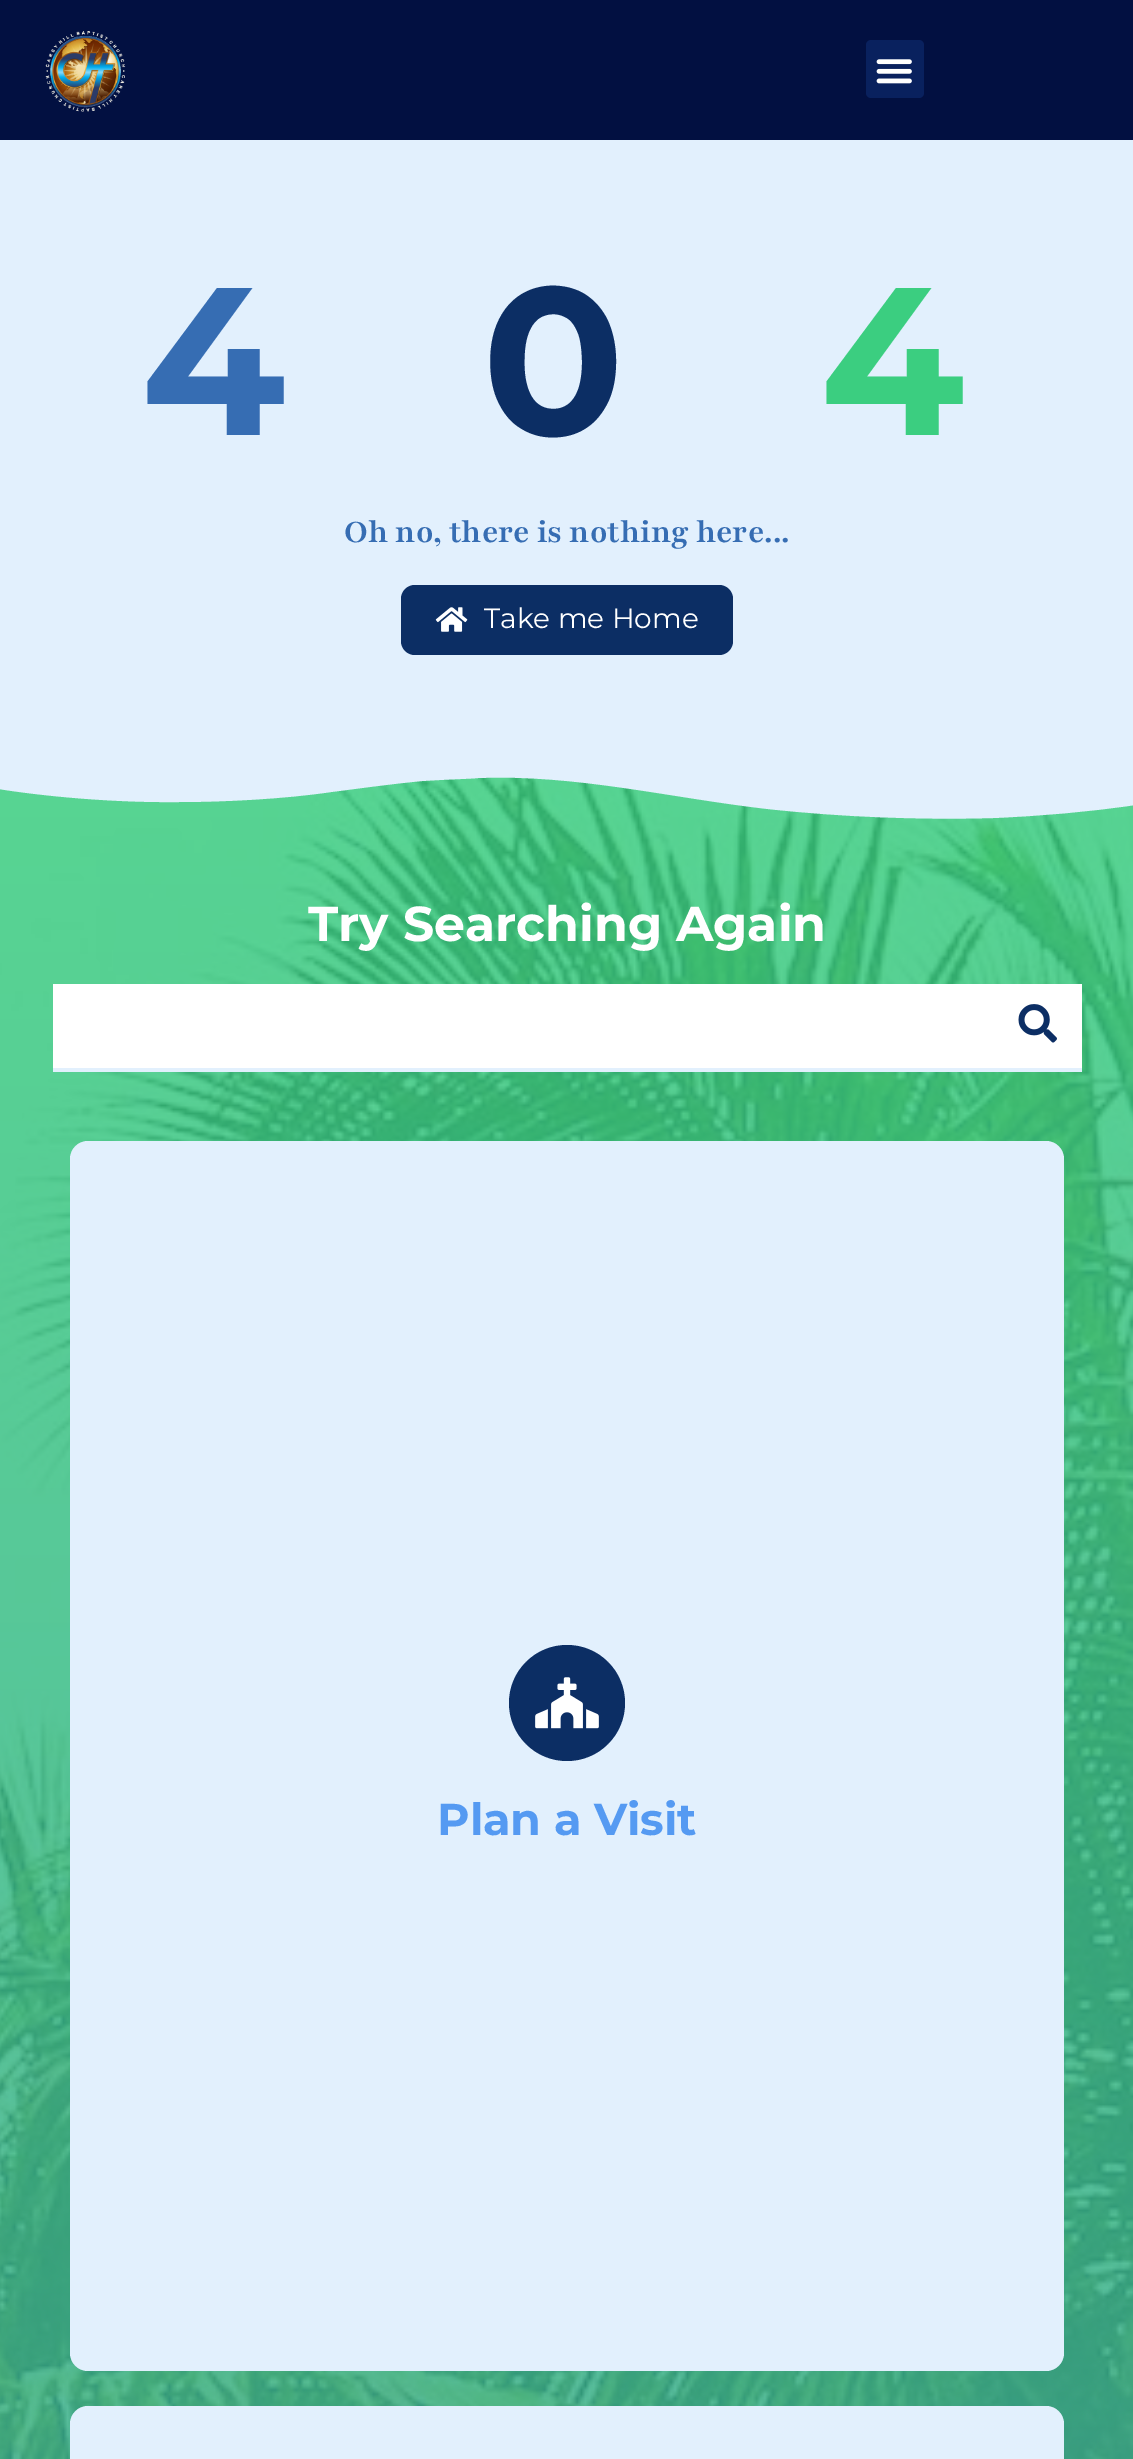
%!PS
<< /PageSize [1133 2459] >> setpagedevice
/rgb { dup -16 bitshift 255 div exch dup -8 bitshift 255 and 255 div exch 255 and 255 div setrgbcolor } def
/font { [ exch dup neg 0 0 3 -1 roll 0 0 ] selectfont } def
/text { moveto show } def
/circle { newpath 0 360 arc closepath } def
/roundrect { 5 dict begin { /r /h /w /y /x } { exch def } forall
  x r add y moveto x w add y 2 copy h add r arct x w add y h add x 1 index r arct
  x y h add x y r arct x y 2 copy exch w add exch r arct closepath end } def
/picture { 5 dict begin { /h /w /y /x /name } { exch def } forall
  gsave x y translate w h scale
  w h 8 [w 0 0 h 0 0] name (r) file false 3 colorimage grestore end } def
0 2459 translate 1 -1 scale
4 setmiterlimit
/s1 { /Montserrat-Bold 210 font 16#366DB3 rgb } def
/s2 { /Montserrat-Bold 210 font 16#0C2E64 rgb } def
/s3 { /Montserrat-Bold 210 font 16#3BCE80 rgb } def
/s4 { /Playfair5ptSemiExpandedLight-Bold 35 font 16#366DB3 rgb } def
/s5 { /Montserrat-Regular 28 font 16#FFFFFF rgb } def
/s6 { /Montserrat-Bold 49 font 16#FFFFFF rgb } def
/s7 { /Montserrat-Bold 44.5 font 16#559AF2 rgb } def
16#E2F0FD rgb
0 0 1133 2459 rectfill
16#021041 rgb
0 0 1133 140 rectfill
(pic1.raw) 45 31 81 81 picture
16#09215E rgb
866 40 58 58 5 roundrect fill
(pic2.raw) 876 59 36 25 picture
s1
(4) 141 435 text
s2
(0) 482 435 text
s3
(4) 820 435 text
s4
(Oh no, there is nothing here...) 344 542 text
16#0C2E64 rgb
401 585 332 70 14 roundrect fill
(pic3.raw) 435 607 33 25 picture
s5
(Take me Home) 484 628 text
(pic4.raw) 0 777 1133 1682 picture
16#E2F0FD rgb
478 778 moveto 576 774 671 798 768 809 curveto 842 817 918 820 993 818 curveto 1040 816 1088 812 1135 805 curveto 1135 775 lineto -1 775 lineto -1 789 lineto -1 789 81 803 179 802 curveto 223 802 284 799 331 792 curveto 355 789 390 784 422 781 curveto 453 779 467 779 478 778 curveto closepath fill
s6
(Try Searching Again) 308 941 text
53 984 1029 84 rectfill
16#E2F0FD rgb
53 1068 1029 4 rectfill
(pic5.raw) 1018 1004 39 39 picture
70 1141 994 1230 18 roundrect fill
16#0C2E64 rgb
567 1703 58 circle fill
(pic6.raw) 535 1677 64 52 picture
s7
(Plan a Visit) 437 1835 text
16#E2F0FD rgb
70 2406 994 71 18 roundrect fill
showpage
